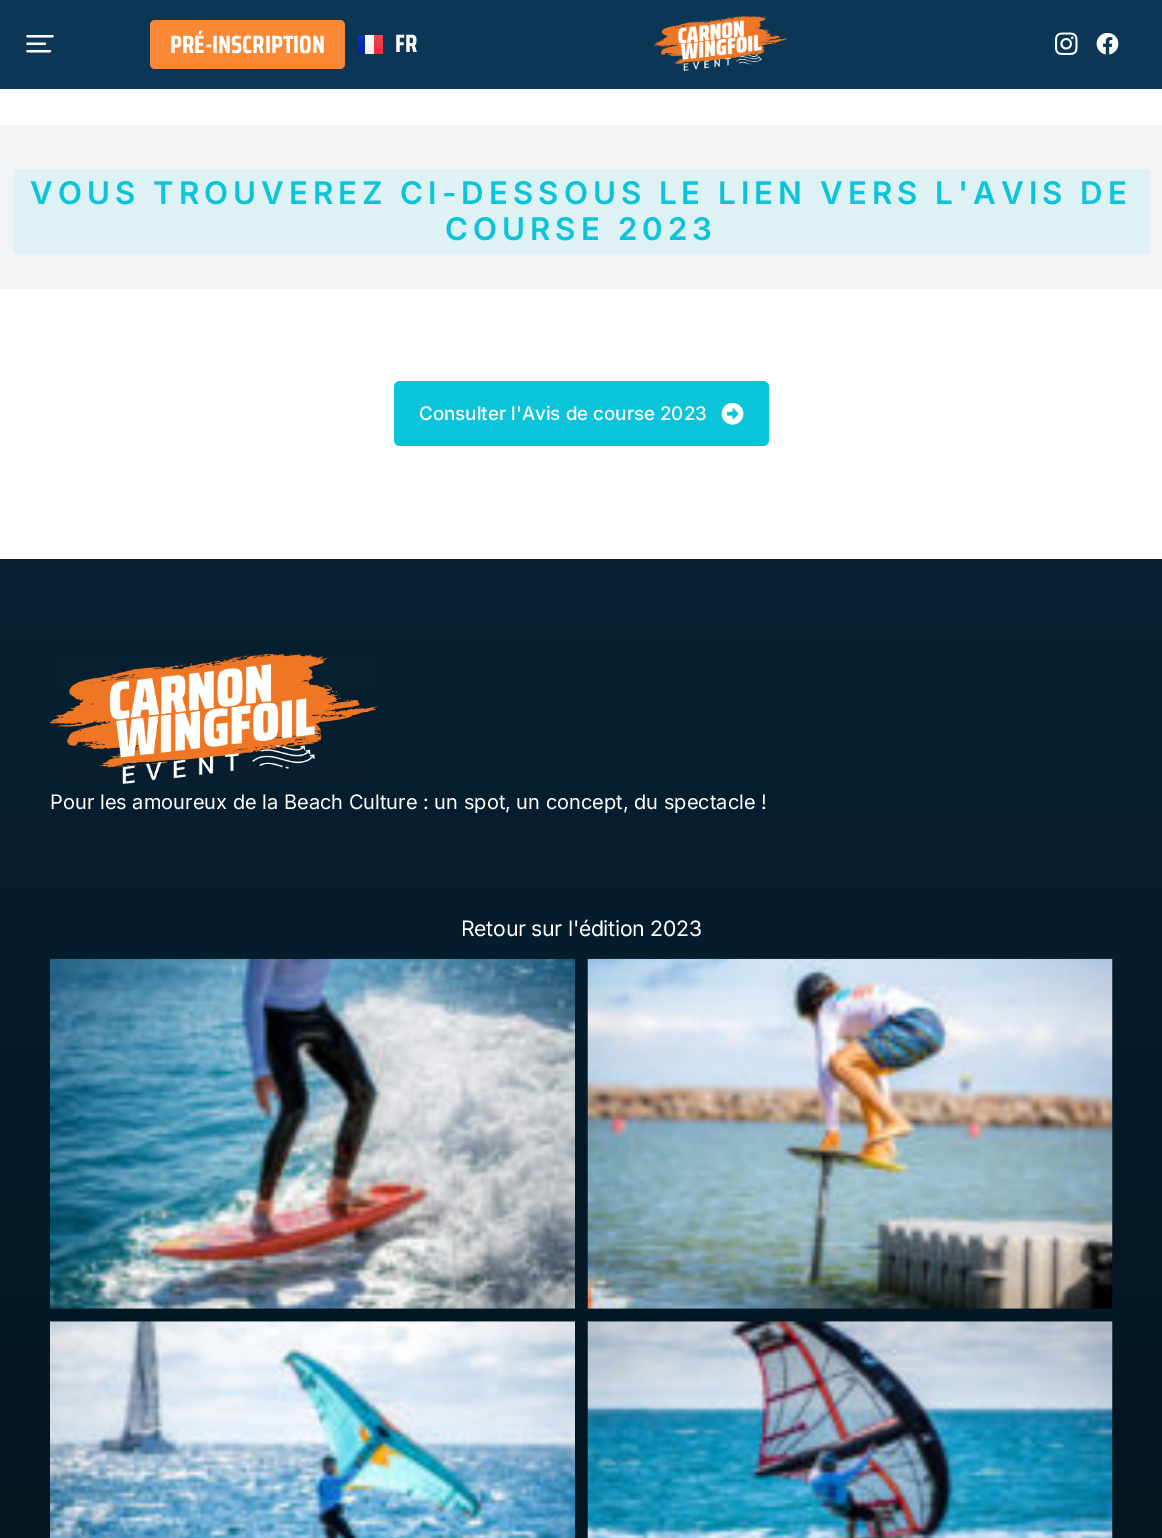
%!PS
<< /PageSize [1162 1538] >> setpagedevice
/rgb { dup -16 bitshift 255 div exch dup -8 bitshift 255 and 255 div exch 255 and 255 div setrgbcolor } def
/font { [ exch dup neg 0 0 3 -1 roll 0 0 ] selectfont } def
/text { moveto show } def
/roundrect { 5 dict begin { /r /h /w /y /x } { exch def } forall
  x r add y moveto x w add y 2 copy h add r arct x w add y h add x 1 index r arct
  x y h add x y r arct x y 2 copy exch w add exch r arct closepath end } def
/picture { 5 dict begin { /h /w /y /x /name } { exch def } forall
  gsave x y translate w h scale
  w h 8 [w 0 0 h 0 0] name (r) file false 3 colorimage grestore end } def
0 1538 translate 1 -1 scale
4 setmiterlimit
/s1 { /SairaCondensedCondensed-Bold 25 font 16#FFFFFF rgb } def
/s2 { /Inter-Medium 18.75 font 16#FFFFFF rgb } def
/s3 { /Inter-Regular 20 font 16#FFFFFF rgb } def
16#FFFFFF rgb
0 0 1162 1538 rectfill
16#0B3655 rgb
0 0 1162 89 rectfill
(pic1.raw) 26 35 28 18 picture
16#FA8835 rgb
150 20 195 49 5 roundrect fill
s1
(PRÉ-INSCRIPTION) 170 53 text
gsave 358 35 moveto 365 35 lineto 365 54 lineto 358 54 lineto closepath clip newpath
<< /ShadingType 2 /ColorSpace /DeviceRGB /Coords [361 35 361 54] /Extend [true true] /Function << /FunctionType 2 /Domain [0 1] /C0 [0.063 0.208 0.733] /C1 [0.016 0.137 0.588] /N 1 >> >> shfill grestore
gsave 365 35 moveto 374 35 lineto 374 54 lineto 365 54 lineto closepath clip newpath
<< /ShadingType 2 /ColorSpace /DeviceRGB /Coords [369 35 369 54] /Extend [true true] /Function << /FunctionType 2 /Domain [0 1] /C0 [1 1 1] /C1 [0.941 0.941 0.941] /N 1 >> >> shfill grestore
gsave 374 35 moveto 383 35 lineto 383 54 lineto 374 54 lineto closepath clip newpath
<< /ShadingType 2 /ColorSpace /DeviceRGB /Coords [376 35 376 54] /Extend [true true] /Function << /FunctionType 2 /Domain [0 1] /C0 [0.957 0.275 0.325] /C1 [0.933 0.165 0.224] /N 1 >> >> shfill grestore
(FR) 395 52 text
(pic2.raw) 654 15 133 56 picture
(pic3.raw) 1055 32 23 23 picture
(pic4.raw) 1096 33 23 22 picture
16#F2F4F6 rgb
0 125 1162 164 rectfill
16#DEF1F4 rgb
13 169 1137 85 4 roundrect fill
/Inter-SemiBold 31.25 font
16#0BC4D9 rgb
30 204 moveto 5 0 (VOUS TROUVEREZ CI-DESSOUS LE LIEN VERS L'AVIS DE) ashow
445 240 moveto 5 0 (COURSE 2023) ashow
394 381 375 65 6 roundrect fill
s2
(Consulter l'Avis de course 2023) 419 420 text
(pic5.raw) 721 403 23 22 picture
gsave 0 559 moveto 1162 559 lineto 1162 1538 lineto 0 1538 lineto closepath clip newpath
<< /ShadingType 2 /ColorSpace /DeviceRGB /Coords [581 559 581 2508] /Extend [true true] /Function << /FunctionType 2 /Domain [0 1] /C0 [0.024 0.129 0.2] /C1 [0.008 0.035 0.055] /N 1 >> >> shfill grestore
(pic6.raw) 50 654 328 130 picture
s3
(Pour les amoureux de la Beach Culture : un spot, un concept, du spectacle !) 50 809 text
/Inter-Regular 21.25 font
461 936 moveto -0.3 0 (Retour sur l'édition 2023) ashow
(pic7.raw) 50 958 525 351 picture
(pic8.raw) 587 958 526 351 picture
(pic9.raw) 50 1321 525 217 picture
(pic10.raw) 587 1321 526 217 picture
showpage
